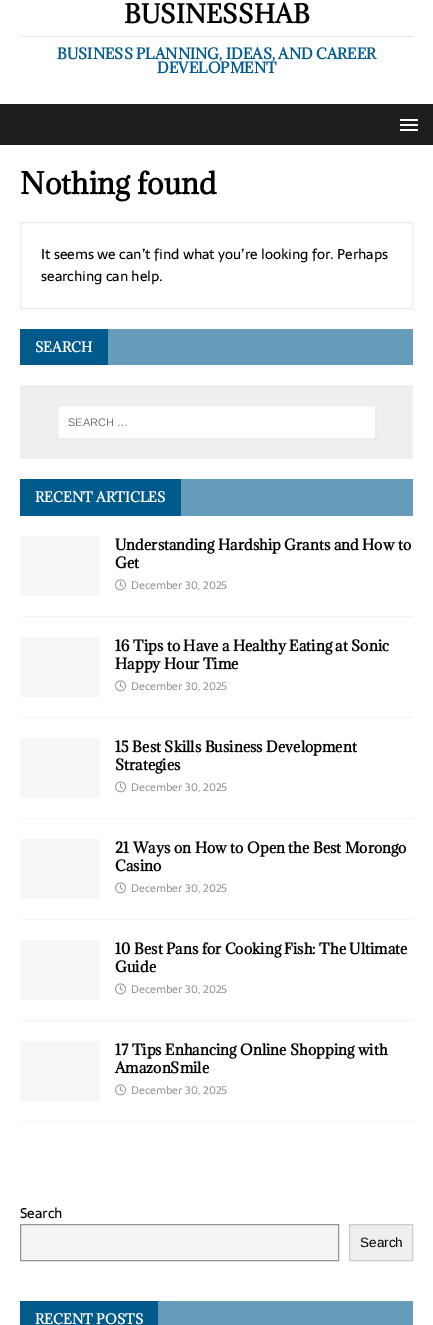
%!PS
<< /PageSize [433 1325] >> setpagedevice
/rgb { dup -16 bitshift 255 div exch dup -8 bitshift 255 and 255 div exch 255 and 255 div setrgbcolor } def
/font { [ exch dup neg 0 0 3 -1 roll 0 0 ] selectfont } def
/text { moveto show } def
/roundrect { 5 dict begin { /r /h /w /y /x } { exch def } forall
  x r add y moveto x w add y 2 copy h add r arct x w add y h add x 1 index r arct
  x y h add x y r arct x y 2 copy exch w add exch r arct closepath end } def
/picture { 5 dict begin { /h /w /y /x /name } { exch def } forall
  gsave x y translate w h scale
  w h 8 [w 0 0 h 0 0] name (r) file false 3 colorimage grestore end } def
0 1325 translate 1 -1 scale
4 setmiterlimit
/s1 { /Adamina-Bold 24 font 16#000000 rgb } def
/s2 { /Adamina-Bold 14 font 16#005A8C rgb } def
/s3 { /Adamina-Bold 28 font 16#000000 rgb } def
/s4 { /Sarala-Regular 14 font 16#000000 rgb } def
/s5 { /Adamina-Bold 13 font 16#FFFFFF rgb } def
/s6 { /LiberationSans-Regular 11 font 16#757575 rgb } def
/s7 { /Adamina-Bold 14 font 16#000000 rgb } def
/s8 { /Sarala-Regular 11 font 16#979797 rgb } def
/s9 { /LiberationSans-Regular 13.5 font 16#000000 rgb } def
16#FFFFFF rgb
0 0 433 1325 rectfill
s1
(BUSINESSHAB) 124 23 text
16#E5E5E5 rgb
20 36 393 1 rectfill
s2
(BUSINESS PLANNING, IDEAS, AND CAREER) 57 59 text
(DEVELOPMENT) 157 73 text
16#1F1E1E rgb
0 104 433 41 rectfill
16#FFFFFF rgb
400 119 18 2 1 roundrect fill
400 124 18 2 1 roundrect fill
400 129 18 2 1 roundrect fill
s3
(Nothing found) 20 194 text
16#EBEBEB rgb
20.5 222.5 392 86 rectstroke
s4
(It seems we can’t find what you’re looking for. Perhaps) 41 259 text
(searching can help.) 41 281 text
16#669CBA rgb
108 329 305 36 rectfill
16#005A8C rgb
20 329 88 36 rectfill
s5
(SEARCH) 35 352 text
16#EFEFEF rgb
20 385 393 74 rectfill
16#FFFFFF rgb
57.5 405.5 moveto 375.5 405.5 lineto 375.5 438.5 lineto 57.5 438.5 lineto closepath gsave fill grestore
16#EBEBEB rgb
stroke
s6
(SEARCH …) 68 426 text
16#669CBA rgb
181 479 232 37 rectfill
16#005A8C rgb
20 479 161 37 rectfill
s5
(RECENT ARTICLES) 35 502 text
16#EBEBEB rgb
[1 1] 0 setdash
20 616.5 moveto 413 616.5 lineto stroke
16#F7F7F7 rgb
20 536 80 60 rectfill
s7
(Understanding Hardship Grants and How to) 115 550 text
(Get) 115 568 text
(pic1.raw) 115 579 11 12 picture
s8
(December 30, 2025) 131 589 text
16#EBEBEB rgb
20 717.5 moveto 413 717.5 lineto stroke
16#F7F7F7 rgb
20 637 80 60 rectfill
s7
(16 Tips to Have a Healthy Eating at Sonic) 115 651 text
(Happy Hour Time) 115 669 text
(pic1.raw) 115 680 11 12 picture
s8
(December 30, 2025) 131 690 text
16#EBEBEB rgb
20 818.5 moveto 413 818.5 lineto stroke
16#F7F7F7 rgb
20 738 80 60 rectfill
s7
(15 Best Skills Business Development) 115 752 text
(Strategies) 115 770 text
(pic1.raw) 115 781 11 12 picture
s8
(December 30, 2025) 131 791 text
16#EBEBEB rgb
20 919.5 moveto 413 919.5 lineto stroke
16#F7F7F7 rgb
20 839 80 60 rectfill
s7
(21 Ways on How to Open the Best Morongo) 115 853 text
(Casino) 115 871 text
(pic1.raw) 115 882 11 12 picture
s8
(December 30, 2025) 131 892 text
16#EBEBEB rgb
20 1020.5 moveto 413 1020.5 lineto stroke
16#F7F7F7 rgb
20 940 80 60 rectfill
s7
(10 Best Pans for Cooking Fish: The Ultimate) 115 954 text
(Guide) 115 972 text
(pic1.raw) 115 983 11 12 picture
s8
(December 30, 2025) 131 993 text
16#EBEBEB rgb
20 1121.5 moveto 413 1121.5 lineto stroke
16#F7F7F7 rgb
20 1041 80 60 rectfill
s7
(17 Tips Enhancing Online Shopping with) 115 1055 text
(AmazonSmile) 115 1073 text
(pic1.raw) 115 1084 11 12 picture
s8
(December 30, 2025) 131 1094 text
s4
(Search) 20 1218 text
16#F5F5F5 rgb
20.5 1224.5 moveto 338.5 1224.5 lineto 338.5 1260.5 lineto 20.5 1260.5 lineto closepath gsave fill grestore
16#949494 rgb
[] 0 setdash
stroke
16#EFEFEF rgb
349.5 1224.5 moveto 412.5 1224.5 lineto 412.5 1260.5 lineto 349.5 1260.5 lineto closepath gsave fill grestore
16#CCCCCC rgb
stroke
s9
(Search) 360 1247 text
16#669CBA rgb
158 1301 255 24 rectfill
16#005A8C rgb
20 1301 138 24 rectfill
s5
(RECENT POSTS) 35 1324 text
showpage
